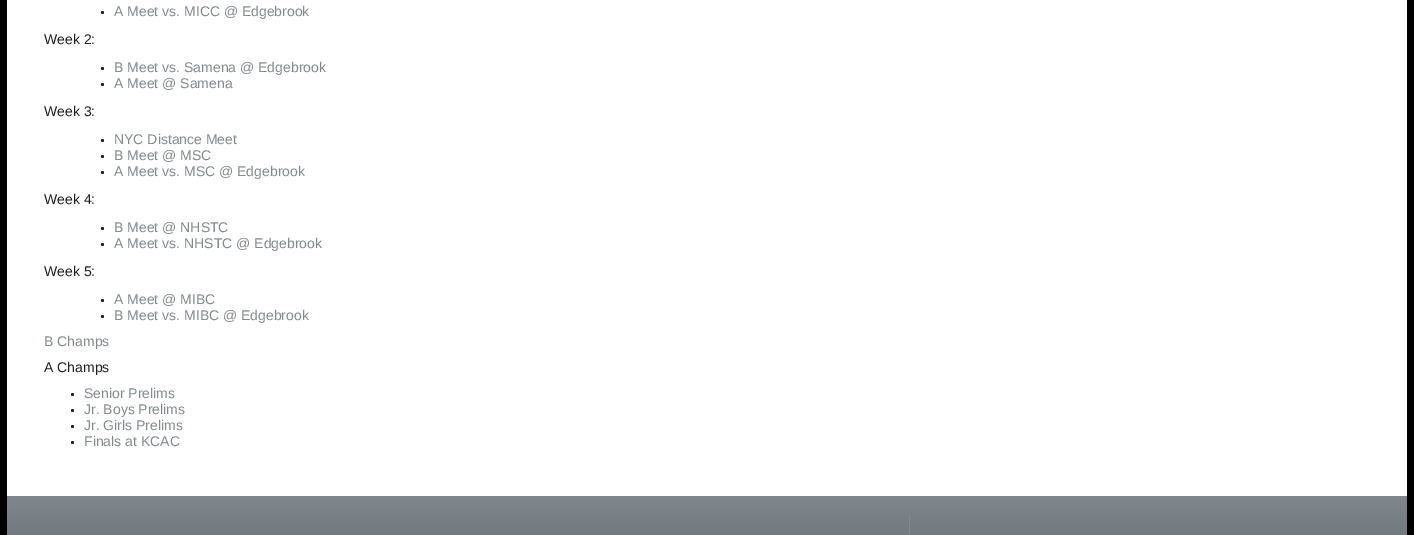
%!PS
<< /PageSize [1414 535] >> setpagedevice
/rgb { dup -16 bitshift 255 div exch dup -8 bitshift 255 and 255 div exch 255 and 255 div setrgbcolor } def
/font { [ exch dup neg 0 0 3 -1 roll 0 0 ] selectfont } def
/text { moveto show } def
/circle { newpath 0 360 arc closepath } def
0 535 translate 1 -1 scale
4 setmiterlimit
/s1 { /LiberationSans-Regular 14 font 16#828A8F rgb } def
/s2 { /LiberationSans-Regular 14 font 16#212121 rgb } def
16#000000 rgb
0 0 1414 535 rectfill
16#FFFFFF rgb
7 0 1400 496 rectfill
16#212121 rgb
102.5 12.5 1.5 circle fill
s1
(A Meet vs. MICC @ Edgebrook) 114 16 text
s2
(Week 2:) 44 44 text
102.5 68.5 1.5 circle fill
s1
(B Meet vs. Samena @ Edgebrook) 114 72 text
16#212121 rgb
102.5 84.5 1.5 circle fill
s1
(A Meet @ Samena) 114 88 text
s2
(Week 3:) 44 116 text
102.5 140.5 1.5 circle fill
s1
(NYC Distance Meet) 114 144 text
16#212121 rgb
102.5 156.5 1.5 circle fill
s1
(B Meet @ MSC) 114 160 text
16#212121 rgb
102.5 172.5 1.5 circle fill
s1
(A Meet vs. MSC @ Edgebrook) 114 176 text
s2
(Week 4:) 44 204 text
102.5 228.5 1.5 circle fill
s1
(B Meet @ NHSTC) 114 232 text
16#212121 rgb
102.5 244.5 1.5 circle fill
s1
(A Meet vs. NHSTC @ Edgebrook) 114 248 text
s2
(Week 5:) 44 276 text
102.5 300.5 1.5 circle fill
s1
(A Meet @ MIBC) 114 304 text
16#212121 rgb
102.5 316.5 1.5 circle fill
s1
(B Meet vs. MIBC @ Edgebrook) 114 320 text
(B Champs) 44 346 text
s2
(A Champs) 44 372 text
72.5 394.5 1.5 circle fill
s1
(Senior Prelims) 84 398 text
16#212121 rgb
72.5 410.5 1.5 circle fill
s1
(Jr. Boys Prelims) 84 414 text
16#212121 rgb
72.5 426.5 1.5 circle fill
s1
(Jr. Girls Prelims) 84 430 text
16#212121 rgb
72.5 442.5 1.5 circle fill
s1
(Finals at KCAC) 84 446 text
gsave 7 496 moveto 1407 496 lineto 1407 535 lineto 7 535 lineto closepath clip newpath
<< /ShadingType 2 /ColorSpace /DeviceRGB /Coords [707 496 707 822] /Extend [true true] /Function << /FunctionType 2 /Domain [0 1] /C0 [0.498 0.529 0.553] /C1 [0.082 0.086 0.09] /N 1 >> >> shfill grestore
909 515 1 20 rectfill
showpage
